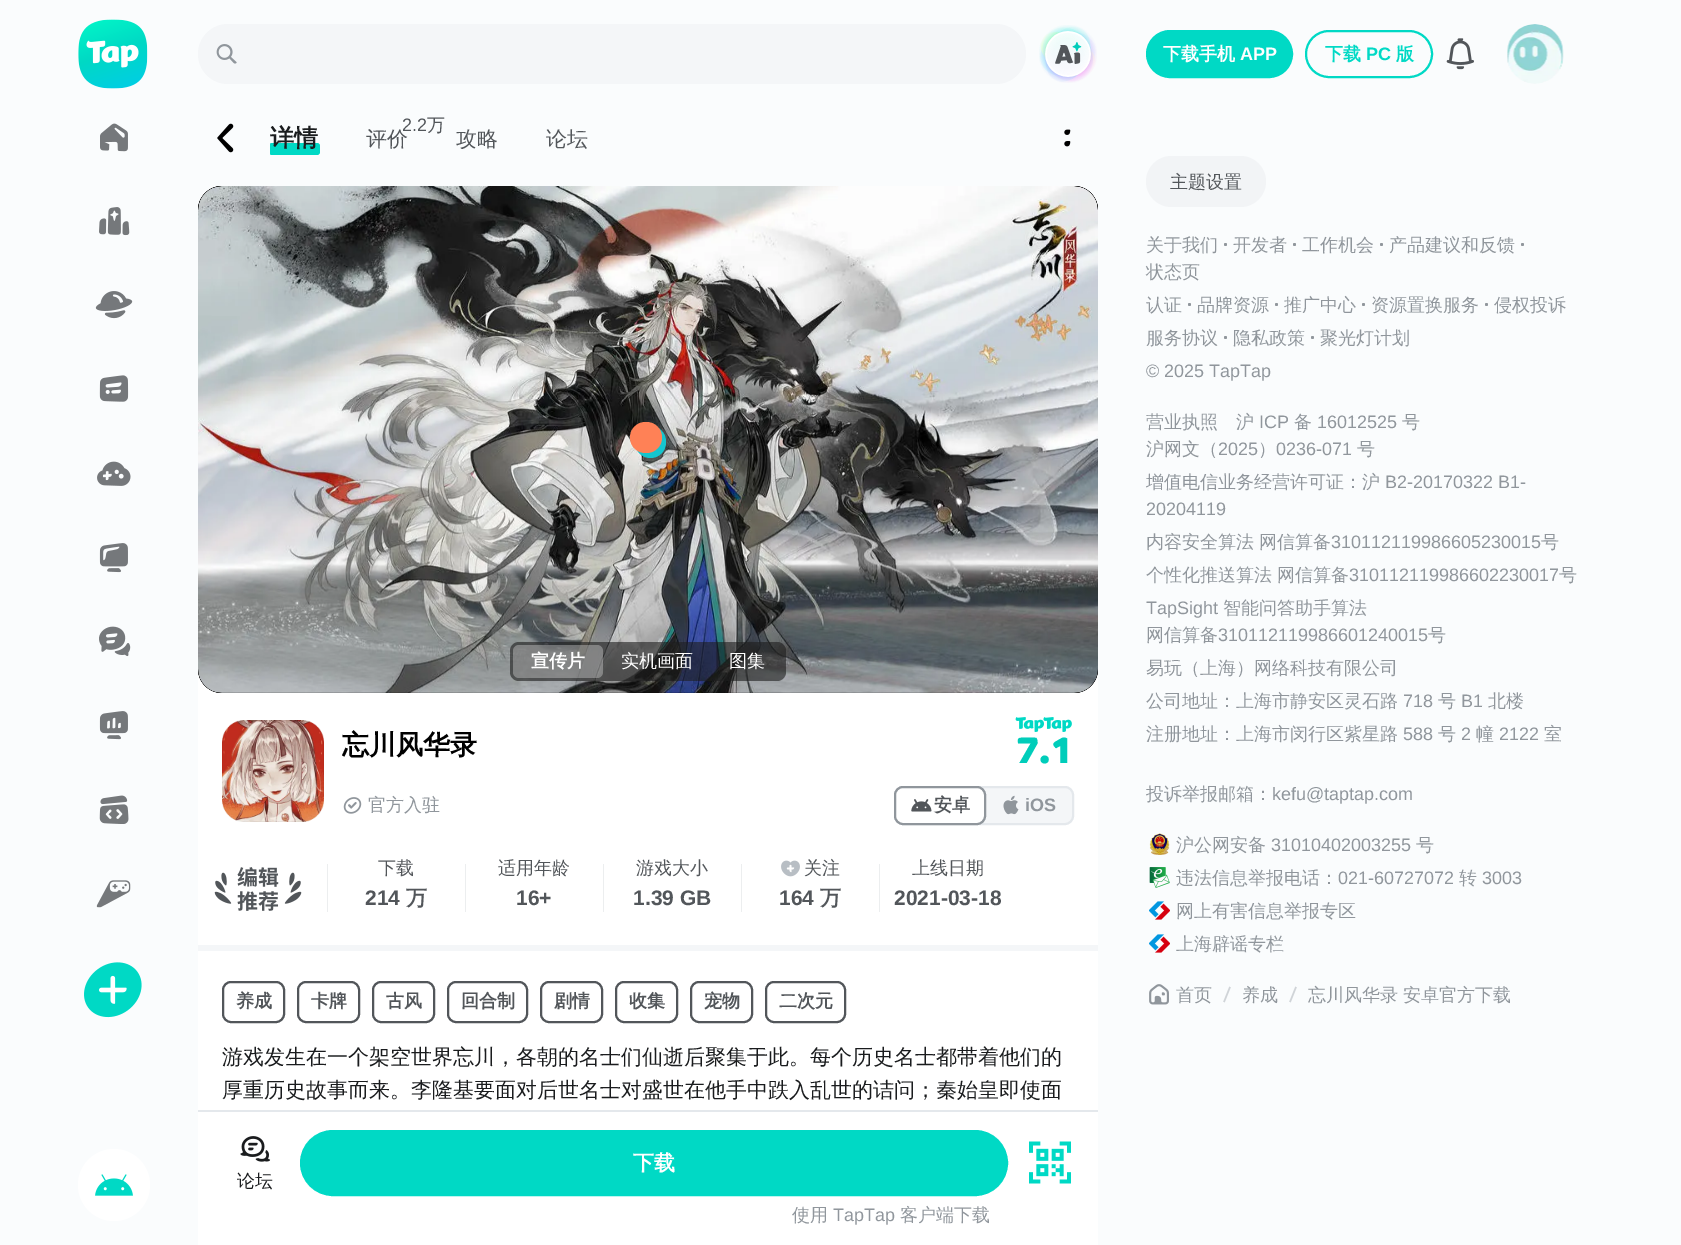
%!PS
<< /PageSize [1681 1245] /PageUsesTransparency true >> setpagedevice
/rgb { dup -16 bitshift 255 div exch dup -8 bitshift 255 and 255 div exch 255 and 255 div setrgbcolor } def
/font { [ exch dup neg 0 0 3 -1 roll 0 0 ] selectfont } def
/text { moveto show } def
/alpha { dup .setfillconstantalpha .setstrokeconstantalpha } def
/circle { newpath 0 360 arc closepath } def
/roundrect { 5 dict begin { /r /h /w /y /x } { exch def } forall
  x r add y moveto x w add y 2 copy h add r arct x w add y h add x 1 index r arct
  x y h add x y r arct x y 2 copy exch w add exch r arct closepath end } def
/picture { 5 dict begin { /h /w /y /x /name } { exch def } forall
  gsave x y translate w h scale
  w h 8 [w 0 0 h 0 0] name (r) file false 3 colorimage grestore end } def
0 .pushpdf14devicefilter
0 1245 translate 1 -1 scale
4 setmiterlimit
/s1 { /WenQuanYiZenHei-Bold 24 font 16#1A1C1E rgb } def
/s2 { /LiberationSans-Regular 18 font 16#52565A rgb } def
/s3 { /WenQuanYiZenHei-Medium 18 font 16#52565A rgb } def
/s4 { /WenQuanYiZenHei-Medium 21 font 16#52565A rgb } def
/s5 { /WenQuanYiZenHei-Bold 18 font 16#FFFFFF rgb } def
/s6 { /WenQuanYiZenHei-Medium 18 font 16#FFFFFF rgb } def
/s7 { /WenQuanYiZenHei-Bold 27 font 16#000000 rgb } def
/s8 { /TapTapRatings-Black 38 font 16#00CDBA rgb } def
/s9 { /WenQuanYiZenHei-Medium 18 font 16#90969C rgb } def
/s10 { /WenQuanYiZenHei-Bold 18 font 16#52565A rgb } def
/s11 { /LiberationSans-Bold 18 font 16#90969C rgb } def
/s12 { /LiberationSans-Bold 21 font 16#52565A rgb } def
/s13 { /WenQuanYiZenHei-Bold 21 font 16#52565A rgb } def
/s14 { /WenQuanYiZenHei-Medium 21 font 16#1A1C1E rgb } def
/s15 { /WenQuanYiZenHei-Medium 18 font 16#1A1C1E rgb } def
/s16 { /WenQuanYiZenHei-Bold 21 font 16#FFFFFF rgb } def
/s17 { /LiberationSans-Regular 18 font 16#90969C rgb } def
/s18 { /LiberationSans-Bold 18 font 16#FFFFFF rgb } def
/s19 { /WenQuanYiZenHei-Bold 18 font 16#00D9C5 rgb } def
/s20 { /LiberationSans-Bold 18 font 16#00D9C5 rgb } def
16#FAFCFD rgb
0 0 1681 1245 rectfill
(pic1.raw) 78 19 70 70 picture
(pic2.raw) 100 123 28 29 picture
(pic3.raw) 99 207 31 29 picture
(pic4.raw) 95 291 38 28 picture
(pic5.raw) 99 375 30 27 picture
(pic6.raw) 97 461 34 25 picture
(pic7.raw) 99 543 29 30 picture
(pic8.raw) 99 626 32 31 picture
(pic9.raw) 99 711 29 29 picture
(pic10.raw) 99 795 30 29 picture
(pic11.raw) 96 880 35 28 picture
(pic12.raw) 84 962 58 56 picture
16#FFFFFF rgb
114 1185 36 circle fill
(pic13.raw) 95 1174 38 22 picture
16#F4F6F8 rgb
198 24 828 60 30 roundrect fill
(pic14.raw) 216 44 21 20 picture
(pic15.raw) 1039 25 58 58 picture
(pic16.raw) 217 123 17 30 picture
gsave
270 108 750 60 rectclip
16#00D9C5 rgb
269 143 51 12 3 roundrect fill
grestore
s1
(详情) 270 146 text
s2
(2.2) 402 131 text
s3
(万) 427 131 text
s4
(评价) 366 146 text
(攻略) 456 146 text
(论坛) 546 146 text
(pic17.raw) 1064 129 7 18 picture
16#FFFFFF rgb
222 186 moveto 1074 186 lineto 1087.5 186 1098 196.5 1098 210 curveto 1098 693 lineto 198 693 lineto 198 210 lineto 198 196.5 208.5 186 222 186 curveto closepath fill
(pic19.raw) 198 187 900 506 picture
16#000000 rgb
198 186 900 507 24 roundrect fill
(pic18.raw) 198 186 900 507 picture
16#15C5CE rgb
635 426 31 32 15.5 roundrect fill
16#FF8156 rgb
630 422 32 31 15.5 roundrect fill
0.6 alpha
16#1D1D1D rgb
510 642 276 39 9 roundrect fill
0.3 alpha
16#FFFFFF rgb
513 645 90 33 6 roundrect fill
1 alpha
s5
(宣传片) 531 667 text
s6
(实机画面) 621 667 text
(图集) 729 667 text
198 693 900 417 rectfill
(pic20.raw) 222 720 102 102 picture
s7
(忘川风华录) 342 754 text
(pic21.raw) 1015 717 57 15 picture
s8
(7.1) 1016 763 text
(pic22.raw) 343 797 19 17 picture
s9
(官方入驻) 368 811 text
16#F4F6F8 rgb
895 787 178 37 8 roundrect gsave fill grestore
16#E4E8EC rgb
2 setlinewidth
stroke
16#FFFFFF rgb
895 787 90 37 8 roundrect gsave fill grestore
16#90969C rgb
stroke
(pic23.raw) 911 799 21 13 picture
s10
(安卓) 934 811 text
(pic24.raw) 1003 795 16 20 picture
s11
(iOS) 1025 811 text
(pic25.raw) 214 867 88 44 picture
16#ECEEEF rgb
327 864 1 48 rectfill
s3
(下载) 378 874 text
s12
(214) 365 905 text
s13
(万) 406 905 text
16#ECEEEF rgb
465 864 1 48 rectfill
s3
(适用年龄) 498 874 text
s12
(16+) 516 905 text
16#ECEEEF rgb
603 864 1 48 rectfill
s3
(游戏大小) 636 874 text
s12
(1.39 GB) 633 905 text
16#ECEEEF rgb
741 864 1 48 rectfill
(pic26.raw) 781 860 19 17 picture
s3
(关注) 804 874 text
s12
(164) 779 905 text
s13
(万) 820 905 text
16#ECEEEF rgb
879 864 1 48 rectfill
s3
(上线日期) 912 874 text
s12
(2021-03-18) 894 905 text
16#F4F6F8 rgb
198 945 900 6 rectfill
16#52565A rgb
223 982 61 40 8 roundrect stroke
s10
(养成) 236 1007 text
298 982 61 40 8 roundrect stroke
(卡牌) 311 1007 text
373 982 61 40 8 roundrect stroke
(古风) 386 1007 text
448 982 79 40 8 roundrect stroke
(回合制) 461 1007 text
541 982 61 40 8 roundrect stroke
(剧情) 554 1007 text
616 982 61 40 8 roundrect stroke
(收集) 629 1007 text
691 982 61 40 8 roundrect stroke
(宠物) 704 1007 text
766 982 79 40 8 roundrect stroke
(二次元) 779 1007 text
s14
(游戏发生在一个架空世界忘川，各朝的名士们仙逝后聚集于此。每个历史名士都带着他们的) 222 1064 text
(厚重历史故事而来。李隆基要面对后世名士对盛世在他手中跌入乱世的诘问；秦始皇即使面) 222 1097 text
16#FFFFFF rgb
198 1112 900 133 rectfill
16#E4E8EC rgb
198 1110 900 2 rectfill
(pic27.raw) 240 1136 31 26 picture
s15
(论坛) 237 1187 text
16#00D9C5 rgb
301.5 1131.5 705 63 31.5 roundrect gsave fill grestore
3 setlinewidth
stroke
s16
(下载) 633 1170 text
s9
(使用) 792 1221 text
s17
(TapTap) 833 1221 text
s9
(客户端下载) 900 1221 text
(pic28.raw) 1029 1141 42 43 picture
16#00D9C5 rgb
1147 31 145 46 23 roundrect gsave fill grestore
2 setlinewidth
stroke
s5
(下载手机) 1163 60 text
s18
(APP) 1240 60 text
16#00D9C5 rgb
1306 31 126 46 23 roundrect stroke
s19
(下载) 1325 60 text
s20
(PC) 1366 60 text
s19
(版) 1396 60 text
(pic29.raw) 1446 38 28 32 picture
(pic30.raw) 1507 24 57 60 picture
16#F2F4F6 rgb
1146 156 120 51 25.5 roundrect fill
s3
(主题设置) 1170 188 text
s9
(关于我们) 1146 251 text
1225.5 244.5 1.5 circle fill
(开发者) 1233 251 text
1294.5 244.5 1.5 circle fill
(工作机会) 1302 251 text
1381.5 244.5 1.5 circle fill
(产品建议和反馈) 1389 251 text
1522.5 244.5 1.5 circle fill
(状态页) 1146 278 text
(认证) 1146 311 text
1189.5 304.5 1.5 circle fill
(品牌资源) 1197 311 text
1276.5 304.5 1.5 circle fill
(推广中心) 1284 311 text
1363.5 304.5 1.5 circle fill
(资源置换服务) 1371 311 text
1486.5 304.5 1.5 circle fill
(侵权投诉) 1494 311 text
(服务协议) 1146 344 text
1225.5 337.5 1.5 circle fill
(隐私政策) 1233 344 text
1312.5 337.5 1.5 circle fill
(聚光灯计划) 1320 344 text
s17
(© 2025 TapTap) 1146 377 text
s9
(营业执照) 1146 428 text
(沪) 1236 428 text
s17
(ICP) 1259 428 text
s9
(备) 1294 428 text
s17
(16012525) 1317 428 text
s9
(号) 1402 428 text
(沪网文（) 1146 455 text
s17
(2025) 1218 455 text
s9
(）) 1258 455 text
s17
(0236-071) 1276 455 text
s9
(号) 1357 455 text
(增值电信业务经营许可证：沪) 1146 488 text
s17
(B2-20170322 B1-) 1385 488 text
(20204119) 1146 515 text
s9
(内容安全算法 网信算备) 1146 548 text
s17
(310112119986605230015) 1331 548 text
s9
(号) 1541 548 text
(个性化推送算法 网信算备) 1146 581 text
s17
(310112119986602230017) 1349 581 text
s9
(号) 1559 581 text
s17
(TapSight) 1146 614 text
s9
(智能问答助手算法) 1223 614 text
(网信算备) 1146 641 text
s17
(310112119986601240015) 1218 641 text
s9
(号) 1428 641 text
(易玩（上海）网络科技有限公司) 1146 674 text
(公司地址：上海市静安区灵石路) 1146 707 text
s17
(718) 1403 707 text
s9
(号) 1438 707 text
s17
(B1) 1461 707 text
s9
(北楼) 1488 707 text
(注册地址：上海市闵行区紫星路) 1146 740 text
s17
(588) 1403 740 text
s9
(号) 1438 740 text
s17
(2) 1461 740 text
s9
(幢) 1476 740 text
s17
(2122) 1499 740 text
s9
(室) 1544 740 text
(投诉举报邮箱：) 1146 800 text
s17
(kefu@taptap.com) 1272 800 text
(pic31.raw) 1149 833 21 22 picture
s9
(沪公网安备) 1176 851 text
s17
(31010402003255) 1271 851 text
s9
(号) 1416 851 text
(pic32.raw) 1149 867 21 21 picture
(违法信息举报电话：) 1176 884 text
s17
(021-60727072) 1338 884 text
s9
(转) 1459 884 text
s17
(3003) 1482 884 text
(pic33.raw) 1149 901 21 19 picture
s9
(网上有害信息举报专区) 1176 917 text
(pic33.raw) 1149 934 21 19 picture
(上海辟谣专栏) 1176 950 text
(pic34.raw) 1149 984 20 21 picture
(首页) 1176 1001 text
16#D0D4D8 rgb
1.5 setlinewidth
1230 987 moveto 1224 1002 lineto stroke
s9
(养成) 1242 1001 text
16#D0D4D8 rgb
1296 987 moveto 1290 1002 lineto stroke
s9
(忘川风华录 安卓官方下载) 1308 1001 text
.poppdf14devicefilter showpage
